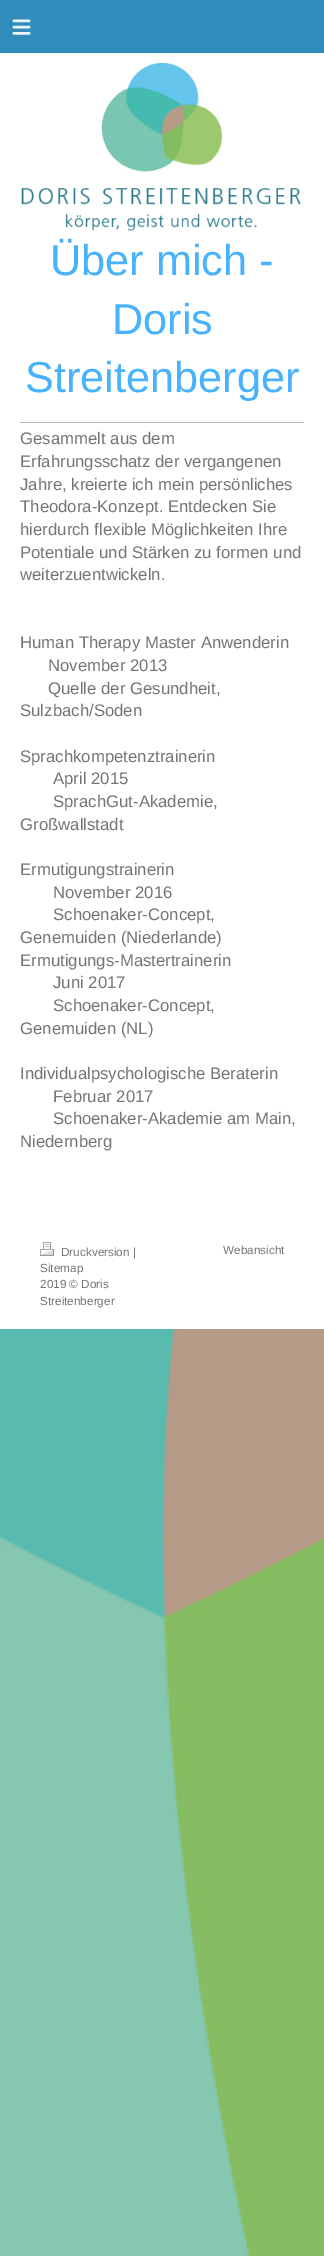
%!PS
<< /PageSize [324 2256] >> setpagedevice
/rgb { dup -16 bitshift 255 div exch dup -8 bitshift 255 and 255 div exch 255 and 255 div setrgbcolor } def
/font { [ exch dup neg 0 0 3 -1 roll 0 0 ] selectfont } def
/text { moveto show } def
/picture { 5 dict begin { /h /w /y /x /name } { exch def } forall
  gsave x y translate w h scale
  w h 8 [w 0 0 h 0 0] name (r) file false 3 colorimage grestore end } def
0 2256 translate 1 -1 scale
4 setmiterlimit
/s1 { /LiberationSans-Regular 43.25 font 16#48B2FD rgb } def
/s2 { /LiberationSans-Regular 16.75 font 16#757575 rgb } def
/s3 { /LiberationSans-Regular 11.75 font 16#757575 rgb } def
16#FFFFFF rgb
0 0 324 2256 rectfill
(pic1.raw) 0 1329 324 927 picture
16#308CBA rgb
0 0 324 53 rectfill
/LiberationSans-Regular 36 font
16#EAF4F8 rgb
11 39 moveto 10 0 (≡) ashow
(pic2.raw) 21 63 280 168 picture
s1
(Über mich -) 50 275 text
(Doris) 112 334 text
(Streitenberger) 25 392 text
16#BABABA rgb
20 422 284 1 rectfill
s2
(Gesammelt aus dem) 20 444 text
(Erfahrungsschatz der vergangenen) 20 467 text
(Jahre, kreierte ich mein persönliches) 20 490 text
(Theodora-Konzept. Entdecken Sie) 20 512 text
(hierdurch flexible Möglichkeiten Ihre) 20 535 text
(Potentiale und Stärken zu formen und) 20 558 text
(weiterzuentwickeln.) 20 580 text
(Human Therapy Master Anwenderin) 20 648 text
(November 2013) 48 671 text
(Quelle der Gesundheit,) 48 694 text
(Sulzbach/Soden) 20 716 text
(Sprachkompetenztrainerin) 20 762 text
(April 2015) 53 784 text
(SprachGut-Akademie,) 53 807 text
(Großwallstadt) 20 830 text
(Ermutigungstrainerin) 20 875 text
(November 2016) 53 898 text
(Schoenaker-Concept,) 53 920 text
(Genemuiden \(Niederlande\)) 20 943 text
(Ermutigungs-Mastertrainerin) 20 966 text
(Juni 2017) 53 988 text
(Schoenaker-Concept,) 53 1011 text
(Genemuiden \(NL\)) 20 1034 text
(Individualpsychologische Beraterin) 20 1079 text
(Februar 2017) 53 1102 text
(Schoenaker-Akademie am Main,) 53 1124 text
(Niedernberg) 20 1147 text
(pic3.raw) 40 1242 14 14 picture
s3
(Druckversion |) 61 1256 text
(Sitemap) 40 1272 text
(2019 © Doris) 40 1288 text
(Streitenberger) 40 1305 text
(Webansicht) 223 1254 text
showpage
